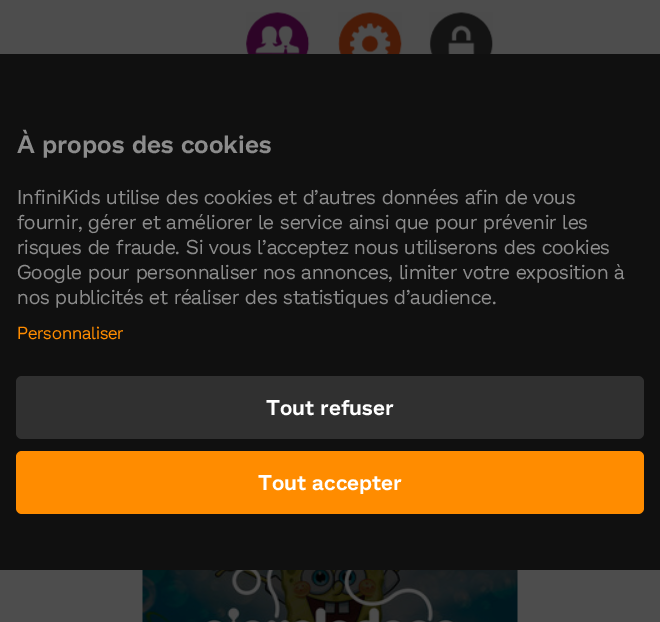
%!PS
<< /PageSize [660 622] >> setpagedevice
/rgb { dup -16 bitshift 255 div exch dup -8 bitshift 255 and 255 div exch 255 and 255 div setrgbcolor } def
/font { [ exch dup neg 0 0 3 -1 roll 0 0 ] selectfont } def
/text { moveto show } def
/roundrect { 5 dict begin { /r /h /w /y /x } { exch def } forall
  x r add y moveto x w add y 2 copy h add r arct x w add y h add x 1 index r arct
  x y h add x y r arct x y 2 copy exch w add exch r arct closepath end } def
/picture { 5 dict begin { /h /w /y /x /name } { exch def } forall
  gsave x y translate w h scale
  w h 8 [w 0 0 h 0 0] name (r) file false 3 colorimage grestore end } def
0 622 translate 1 -1 scale
4 setmiterlimit
/s1 { /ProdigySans-SemiBold 25 font 16#8C8C8C rgb } def
/s2 { /ProdigySans-Regular 20 font 16#8C8C8C rgb } def
/s3 { /ProdigySans-Regular 17.5 font 16#FF8C00 rgb } def
/s4 { /ProdigySans-SemiBold 21.25 font 16#FFFFFF rgb } def
16#4D4D4D rgb
0 0 660 622 rectfill
(pic1.raw) 246 12 64 42 picture
(pic2.raw) 338 12 64 42 picture
(pic3.raw) 429 12 64 42 picture
(pic4.raw) 142 570 376 52 picture
16#101010 rgb
0 54 660 516 rectfill
s1
(À propos des cookies) 17 153 text
s2
(InfiniKids utilise des cookies et d’autres données afin de vous) 17 204 text
(fournir, gérer et améliorer le service ainsi que pour prévenir les) 17 229 text
(risques de fraude. Si vous l’acceptez nous utiliserons des cookies) 17 254 text
(Google pour personnaliser nos annonces, limiter votre exposition à) 17 279 text
(nos publicités et réaliser des statistiques d’audience.) 17 304 text
s3
(Personnaliser) 17 339 text
16#303030 rgb
16 376 628 63 6 roundrect fill
s4
(Tout refuser) 266 415 text
16#FF8C00 rgb
16 451 628 63 6 roundrect fill
s4
(Tout accepter) 258 490 text
showpage
